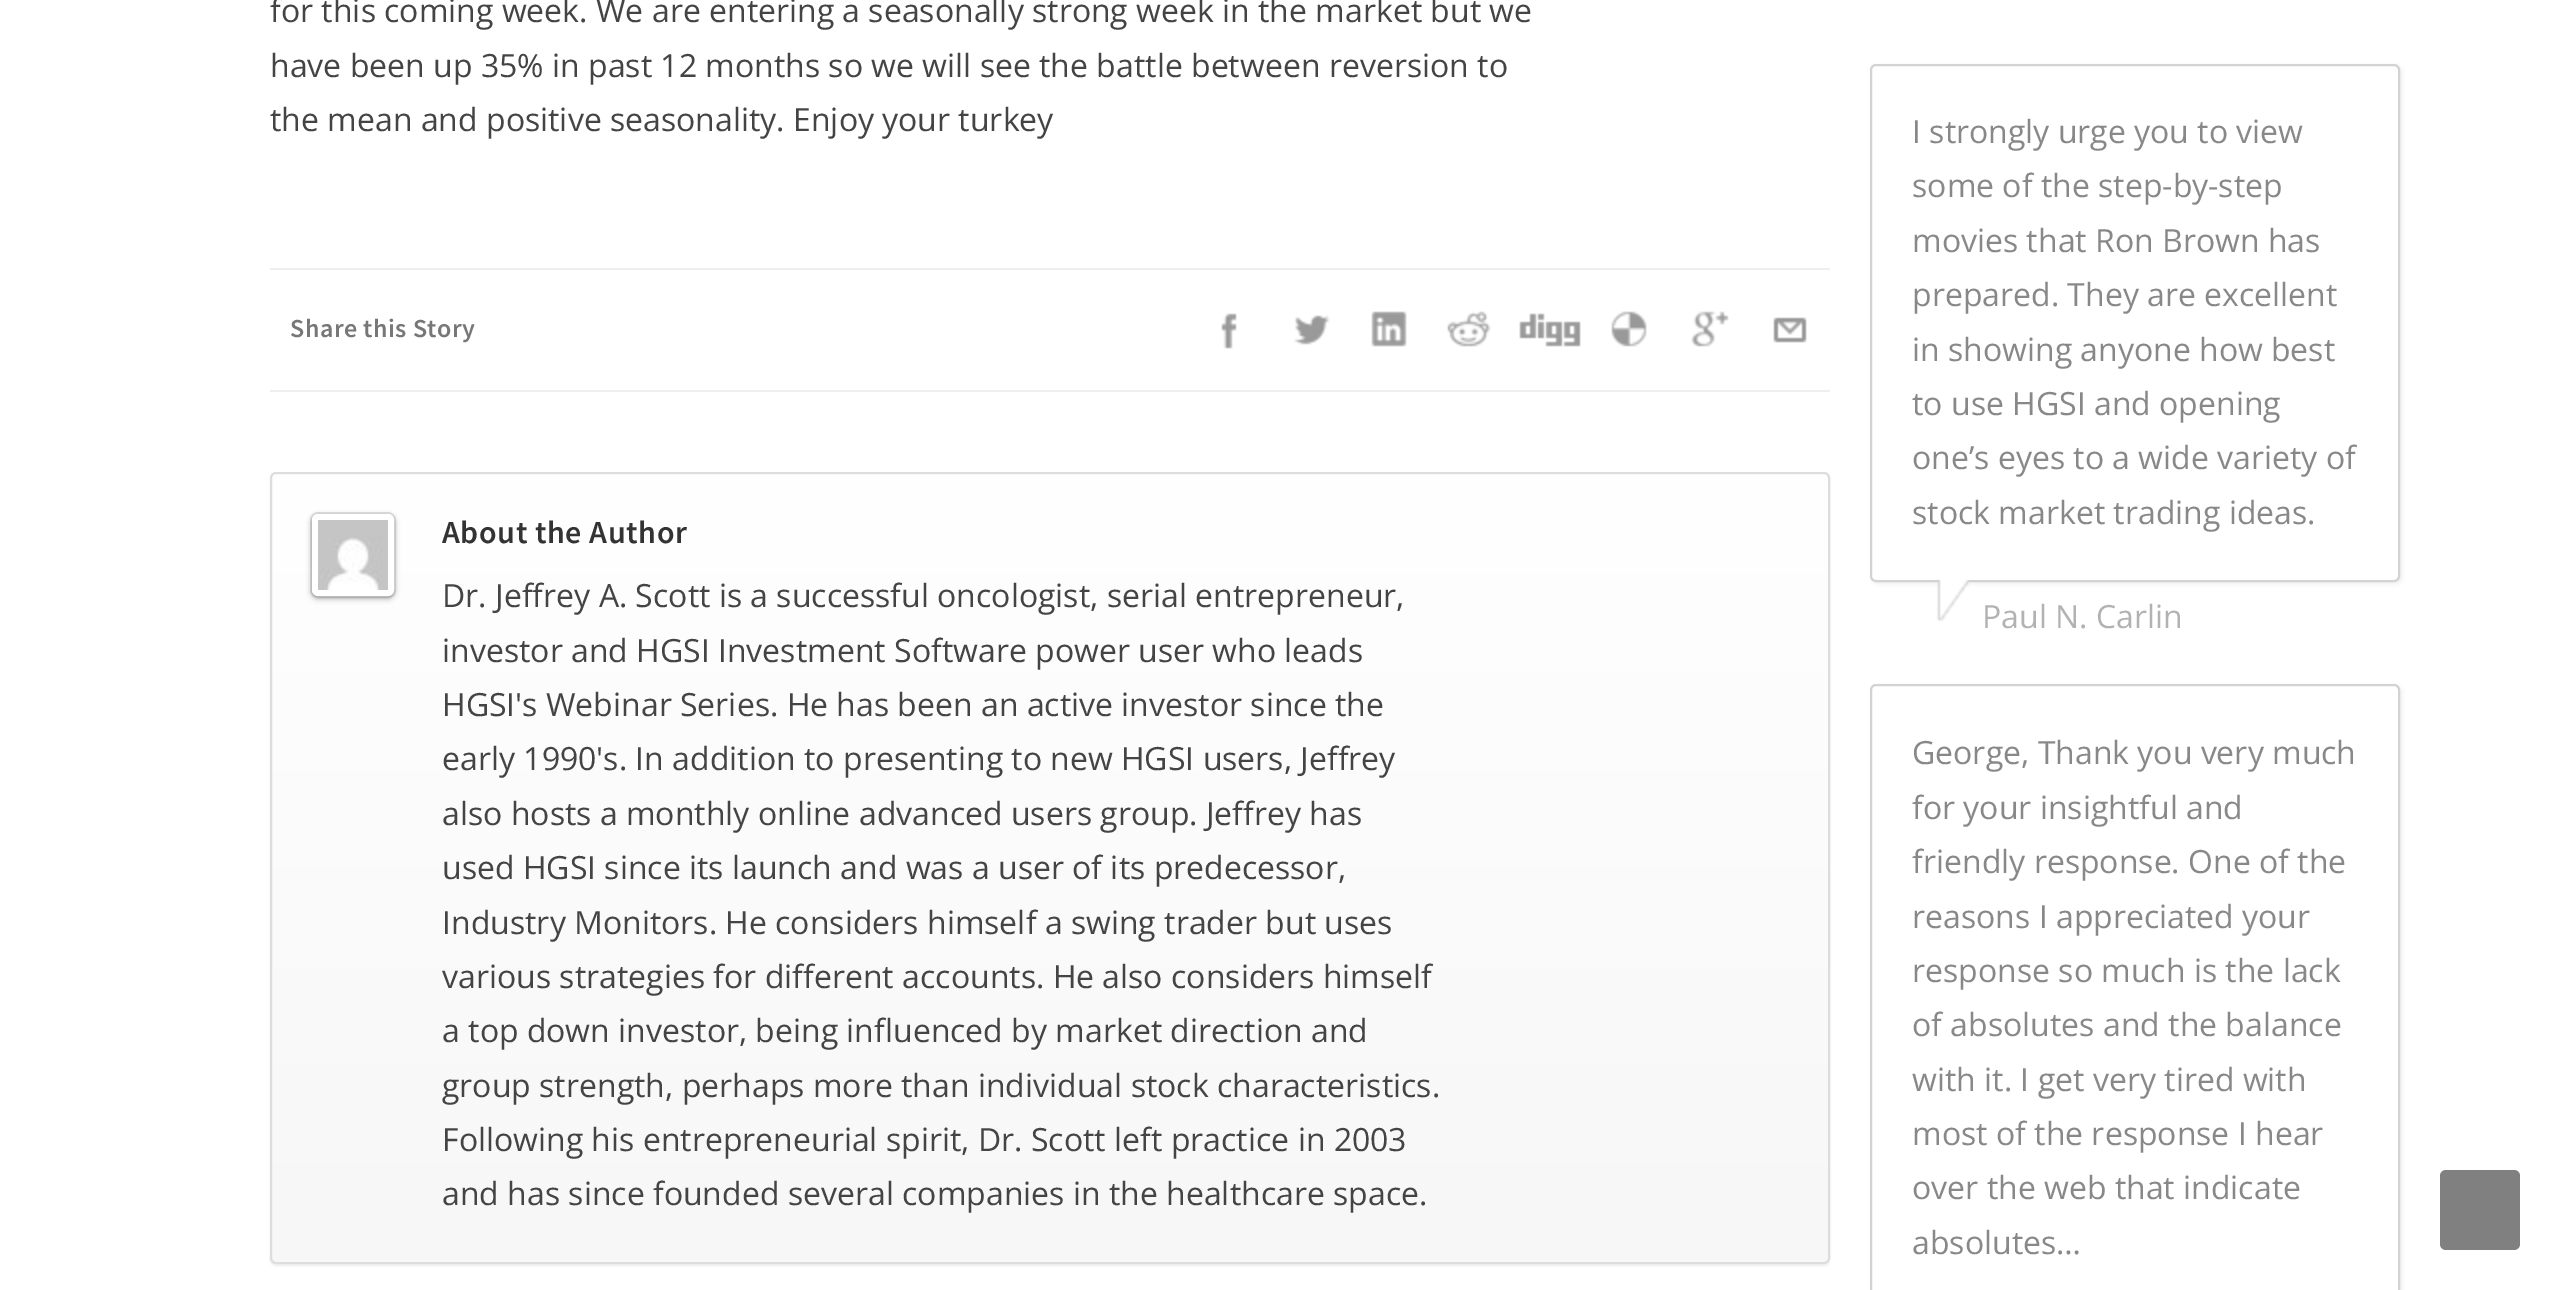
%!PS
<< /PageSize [2560 1290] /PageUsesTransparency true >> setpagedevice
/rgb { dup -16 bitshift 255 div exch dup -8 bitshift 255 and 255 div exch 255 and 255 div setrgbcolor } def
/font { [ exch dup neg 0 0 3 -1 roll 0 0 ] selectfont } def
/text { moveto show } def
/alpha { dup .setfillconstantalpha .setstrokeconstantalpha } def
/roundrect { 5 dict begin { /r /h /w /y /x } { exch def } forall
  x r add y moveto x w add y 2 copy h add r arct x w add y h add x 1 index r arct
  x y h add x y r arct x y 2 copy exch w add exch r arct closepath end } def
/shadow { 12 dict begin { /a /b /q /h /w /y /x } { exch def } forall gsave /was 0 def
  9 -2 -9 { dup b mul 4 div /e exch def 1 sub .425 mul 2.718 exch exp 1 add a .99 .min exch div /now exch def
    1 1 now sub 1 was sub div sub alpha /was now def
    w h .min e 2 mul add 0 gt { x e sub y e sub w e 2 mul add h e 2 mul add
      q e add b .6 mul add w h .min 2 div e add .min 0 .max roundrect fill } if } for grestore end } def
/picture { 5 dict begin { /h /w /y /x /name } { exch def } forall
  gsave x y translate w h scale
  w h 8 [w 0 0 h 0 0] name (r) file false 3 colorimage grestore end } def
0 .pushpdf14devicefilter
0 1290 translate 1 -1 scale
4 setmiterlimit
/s1 { /OpenSans-Regular 32 font 16#444444 rgb } def
/s2 { /OpenSans-Regular 32 font 16#888888 rgb } def
/s3 { /OpenSans-Regular 32 font 16#B2B2B2 rgb } def
16#FFFFFF rgb
0 0 2560 1290 rectfill
s1
(for this coming week. We are entering a seasonally strong week in the market but we) 270 22 text
(have been up 35% in past 12 months so we will see the battle between reversion to) 270 77 text
(the mean and positive seasonality. Enjoy your turkey) 270 131 text
16#EFEFEF rgb
270 268 1560 2 rectfill
270 390 1560 2 rectfill
/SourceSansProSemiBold-SemiBold 26 font
16#777777 rgb
290 337 moveto 0.5 0 (Share this Story) ashow
(pic1.raw) 1221 313 16 36 picture
(pic2.raw) 1294 315 36 30 picture
(pic3.raw) 1371 311 36 36 picture
(pic4.raw) 1447 311 44 36 picture
(pic5.raw) 1519 313 62 34 picture
(pic6.raw) 1611 311 36 36 picture
(pic7.raw) 1691 311 38 36 picture
(pic8.raw) 1773 317 34 26 picture
16#B4B4B4 rgb
270 474 1560 792 6 1 0.2 shadow
gsave
270 472 1560 792 6 roundrect clip newpath
gsave 270 474 moveto 1830 474 lineto 1830 1262 lineto 270 1262 lineto closepath clip newpath
<< /ShadingType 2 /ColorSpace /DeviceRGB /Coords [1050 1262 1050 474] /Extend [true true] /Function << /FunctionType 2 /Domain [0 1] /C0 [0.969 0.969 0.969] /C1 [1 1 1] /N 1 >> >> shfill grestore
grestore
16#DDDDDD rgb
2 setlinewidth
271 473 1558 790 5 roundrect stroke
16#E5E5E5 rgb
311 513 84 84 7 roundrect stroke
16#000000 rgb
312 516 82 82 6 3 0.4 shadow
16#FFFFFF rgb
6 setlinewidth
315 517 76 76 3 roundrect stroke
(pic9.raw) 318 520 70 70 picture
/SourceSansProSemiBold-SemiBold 32 font
16#333333 rgb
442 543 moveto 0.6 0 (About the Author) ashow
s1
(Dr. Jeffrey A. Scott is a successful oncologist, serial entrepreneur,) 442 607 text
(investor and HGSI Investment Software power user who leads) 442 662 text
(HGSI's Webinar Series. He has been an active investor since the) 442 716 text
(early 1990's. In addition to presenting to new HGSI users, Jeffrey) 442 770 text
(also hosts a monthly online advanced users group. Jeffrey has) 442 825 text
(used HGSI since its launch and was a user of its predecessor,) 442 879 text
(Industry Monitors. He considers himself a swing trader but uses) 442 934 text
(various strategies for different accounts. He also considers himself) 442 988 text
(a top down investor, being influenced by market direction and) 442 1042 text
(group strength, perhaps more than individual stock characteristics.) 442 1097 text
(Following his entrepreneurial spirit, Dr. Scott left practice in 2003) 442 1151 text
(and has since founded several companies in the healthcare space.) 442 1205 text
16#B4B4B4 rgb
1872 66 530 518 6 2 0.2 shadow
16#FFFFFF rgb
1871 65 528 516 5 roundrect gsave fill grestore
16#D3D3D3 rgb
2 setlinewidth
stroke
s2
(I strongly urge you to view) 1912 143 text
(some of the step-by-step) 1912 197 text
(movies that Ron Brown has) 1912 252 text
(prepared. They are excellent) 1912 306 text
(in showing anyone how best) 1912 361 text
(to use HGSI and opening) 1912 415 text
(one’s eyes to a wide variety of) 1912 469 text
(stock market trading ideas.) 1912 524 text
(pic10.raw) 1932 580 44 42 picture
s3
(Paul N. Carlin) 1982 628 text
16#B4B4B4 rgb
1872 686 530 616 6 2 0.2 shadow
16#FFFFFF rgb
1871 685 528 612 5 roundrect gsave fill grestore
16#D3D3D3 rgb
stroke
s2
(George, Thank you very much) 1912 764 text
(for your insightful and) 1912 819 text
(friendly response. One of the) 1912 873 text
(reasons I appreciated your) 1912 928 text
(response so much is the lack) 1912 982 text
(of absolutes and the balance) 1912 1036 text
(with it. I get very tired with) 1912 1091 text
(most of the response I hear) 1912 1145 text
(over the web that indicate) 1912 1199 text
(absolutes…) 1912 1254 text
16#808080 rgb
2440 1170 80 80 6 roundrect fill
.poppdf14devicefilter showpage
